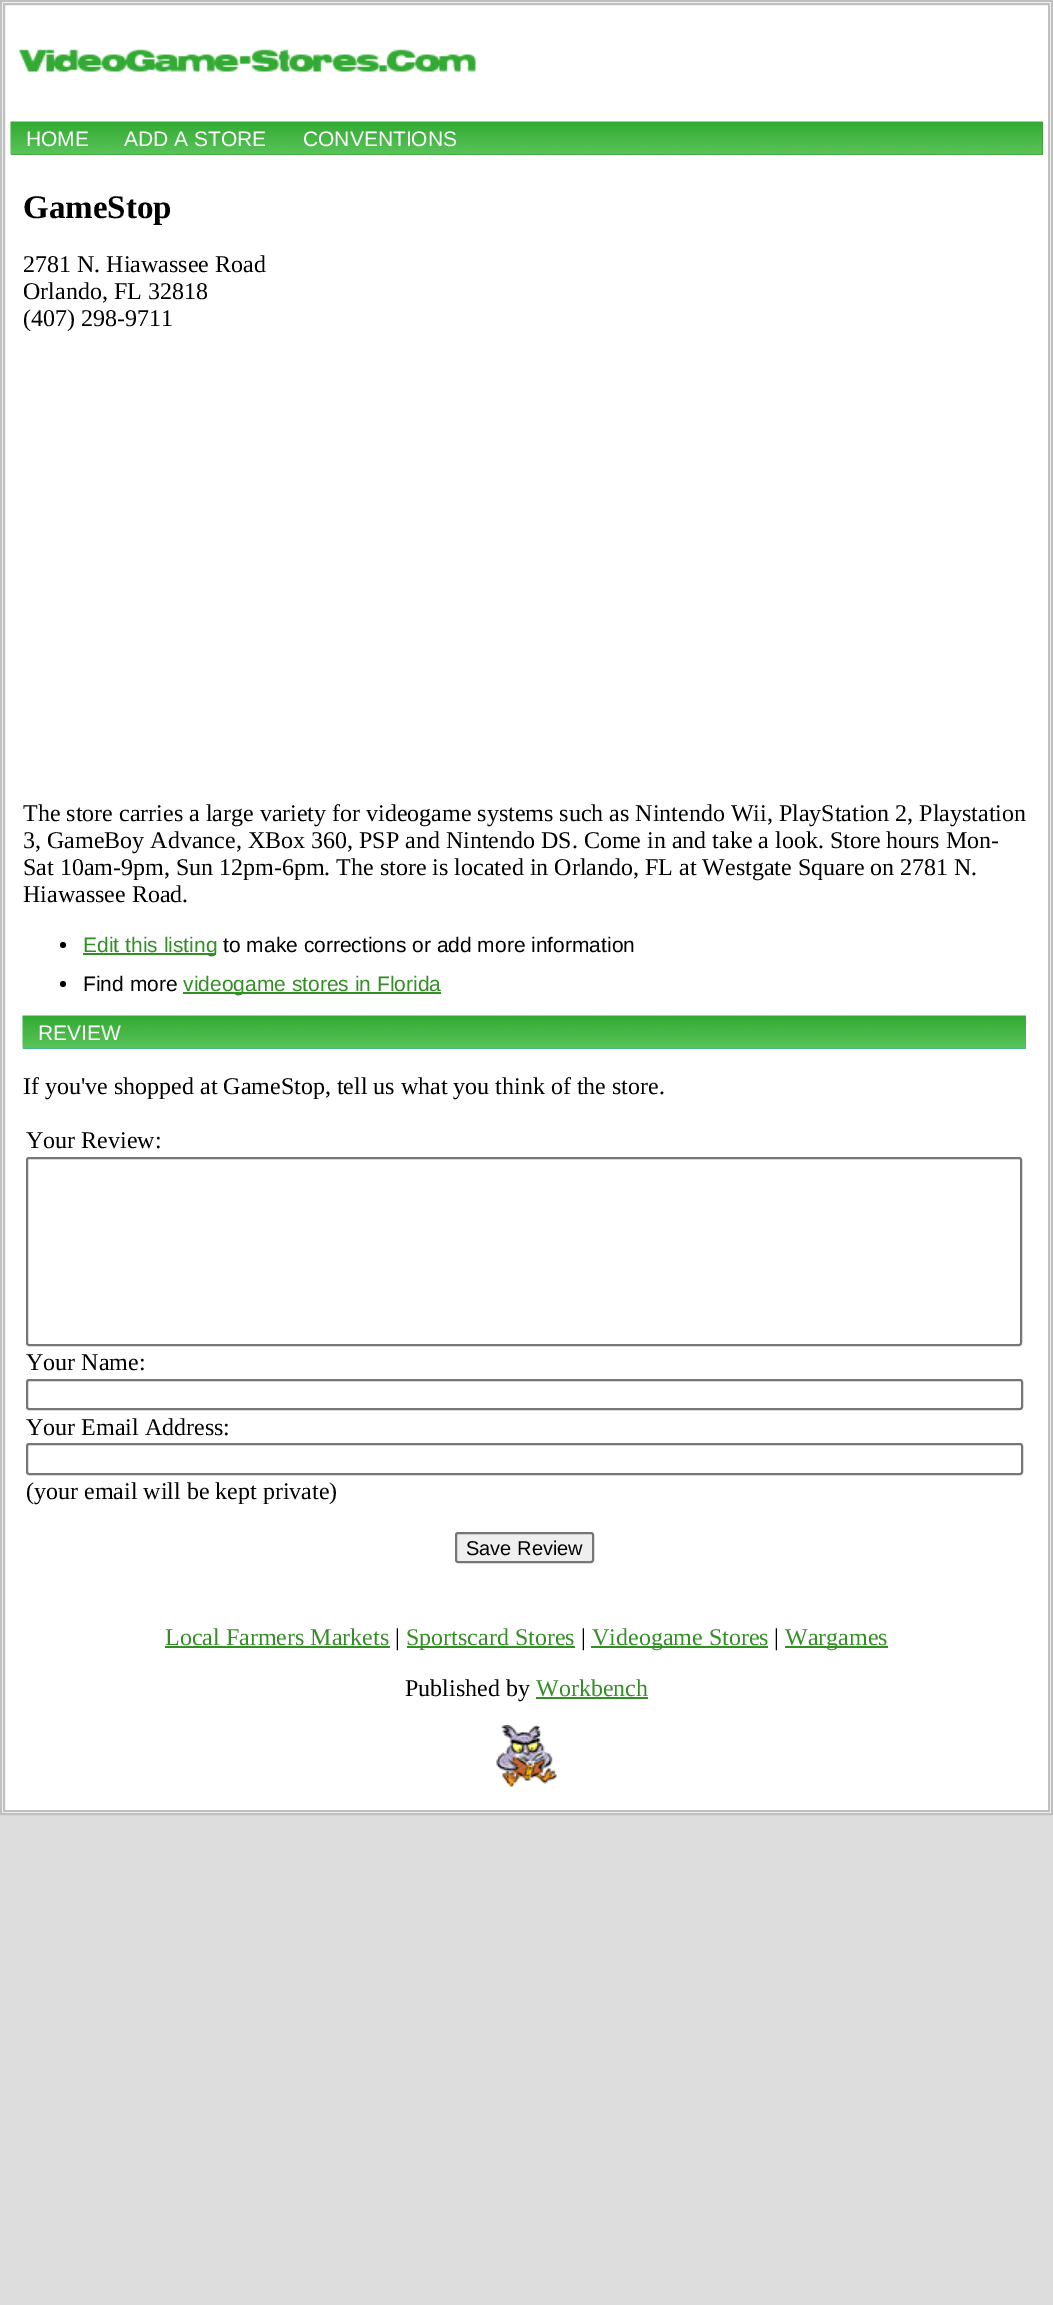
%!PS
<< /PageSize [1053 2305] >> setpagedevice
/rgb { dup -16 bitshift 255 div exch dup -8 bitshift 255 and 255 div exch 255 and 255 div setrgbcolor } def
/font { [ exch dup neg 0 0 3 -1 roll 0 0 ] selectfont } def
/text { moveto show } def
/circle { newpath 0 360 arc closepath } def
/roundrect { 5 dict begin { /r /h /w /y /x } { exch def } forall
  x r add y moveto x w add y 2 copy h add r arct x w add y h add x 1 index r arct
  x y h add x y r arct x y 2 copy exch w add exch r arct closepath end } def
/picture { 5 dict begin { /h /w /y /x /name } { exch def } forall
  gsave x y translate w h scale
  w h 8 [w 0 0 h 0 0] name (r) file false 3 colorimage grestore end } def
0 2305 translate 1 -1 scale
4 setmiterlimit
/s1 { /LiberationSans-Regular 21 font 16#FFFFFF rgb } def
/s2 { /LiberationSerif-Bold 33 font 16#000000 rgb } def
/s3 { /LiberationSerif-Regular 24 font 16#000000 rgb } def
/s4 { /LiberationSans-Regular 21 font 16#338E26 rgb } def
/s5 { /LiberationSans-Regular 21 font 16#000000 rgb } def
/s6 { /LiberationSans-Regular 20 font 16#000000 rgb } def
/s7 { /LiberationSerif-Regular 24 font 16#338E26 rgb } def
16#DDDDDD rgb
0 0 1053 2305 rectfill
16#FFFFFF rgb
1 1 moveto 1052 1 lineto 1052 1814 lineto 1 1814 lineto closepath gsave fill grestore
16#C0C0C0 rgb
2 setlinewidth
stroke
4 4 1045 1807 rectstroke
(pic1.raw) 19 49 457 23 picture
16#338E26 rgb
11 122 1032 33 rectfill
(pic2.raw) 10 121 1033 34 picture
s1
(HOME) 26 146 text
(ADD A STORE) 124 146 text
(CONVENTIONS) 303 146 text
s2
(GameStop) 23 218 text
s3
(2781 N. Hiawassee Road) 23 272 text
(Orlando, FL 32818) 23 299 text
(\(407\) 298-9711) 23 326 text
(The store carries a large variety for videogame systems such as Nintendo Wii, PlayStation 2, Playstation) 23 821 text
(3, GameBoy Advance, XBox 360, PSP and Nintendo DS. Come in and take a look. Store hours Mon-) 23 848 text
(Sat 10am-9pm, Sun 12pm-6pm. The store is located in Orlando, FL at Westgate Square on 2781 N.) 23 875 text
(Hiawassee Road.) 23 902 text
63 945 3 circle fill
16#338E26 rgb
83 953 133 2 rectfill
s4
(Edit this listing) 83 952 text
s5
(to make corrections or add more information) 223 952 text
63 984 3 circle fill
(Find more) 83 991 text
16#338E26 rgb
183 992 258 2 rectfill
(videogame stores in Florida) 183 991 text
16#33AACC rgb
23 1048 1003 1 rectfill
(pic3.raw) 22 1015 1004 34 picture
s1
(REVIEW) 38 1040 text
s3
(If you've shopped at GameStop, tell us what you think of the store.) 23 1094 text
(Your Review:) 26 1148 text
16#767676 rgb
27 1158 994 187 2 roundrect stroke
s3
(Your Name:) 26 1370 text
16#767676 rgb
27 1380 995 29 2 roundrect stroke
s3
(Your Email Address:) 26 1435 text
16#767676 rgb
27 1444 995 30 2 roundrect stroke
s3
(\(your email will be kept private\)) 26 1499 text
16#EFEFEF rgb
456 1533 137 29 2 roundrect gsave fill grestore
16#767676 rgb
stroke
s6
(Save Review) 466 1555 text
s7
(Local Farmers Markets) 165 1645 text
165 1646 225 2 rectfill
s3
(|) 395 1645 text
16#338E26 rgb
407 1646 168 2 rectfill
(Sportscard Stores) 406 1645 text
s3
(|) 581 1645 text
16#338E26 rgb
591 1646 177 2 rectfill
(Videogame Stores) 592 1645 text
s3
(|) 774 1645 text
16#338E26 rgb
785 1646 103 2 rectfill
(Wargames) 785 1645 text
s3
(Published by) 405 1696 text
s7
(Workbench) 536 1696 text
536 1697 112 2 rectfill
(pic4.raw) 496 1725 61 62 picture
showpage
